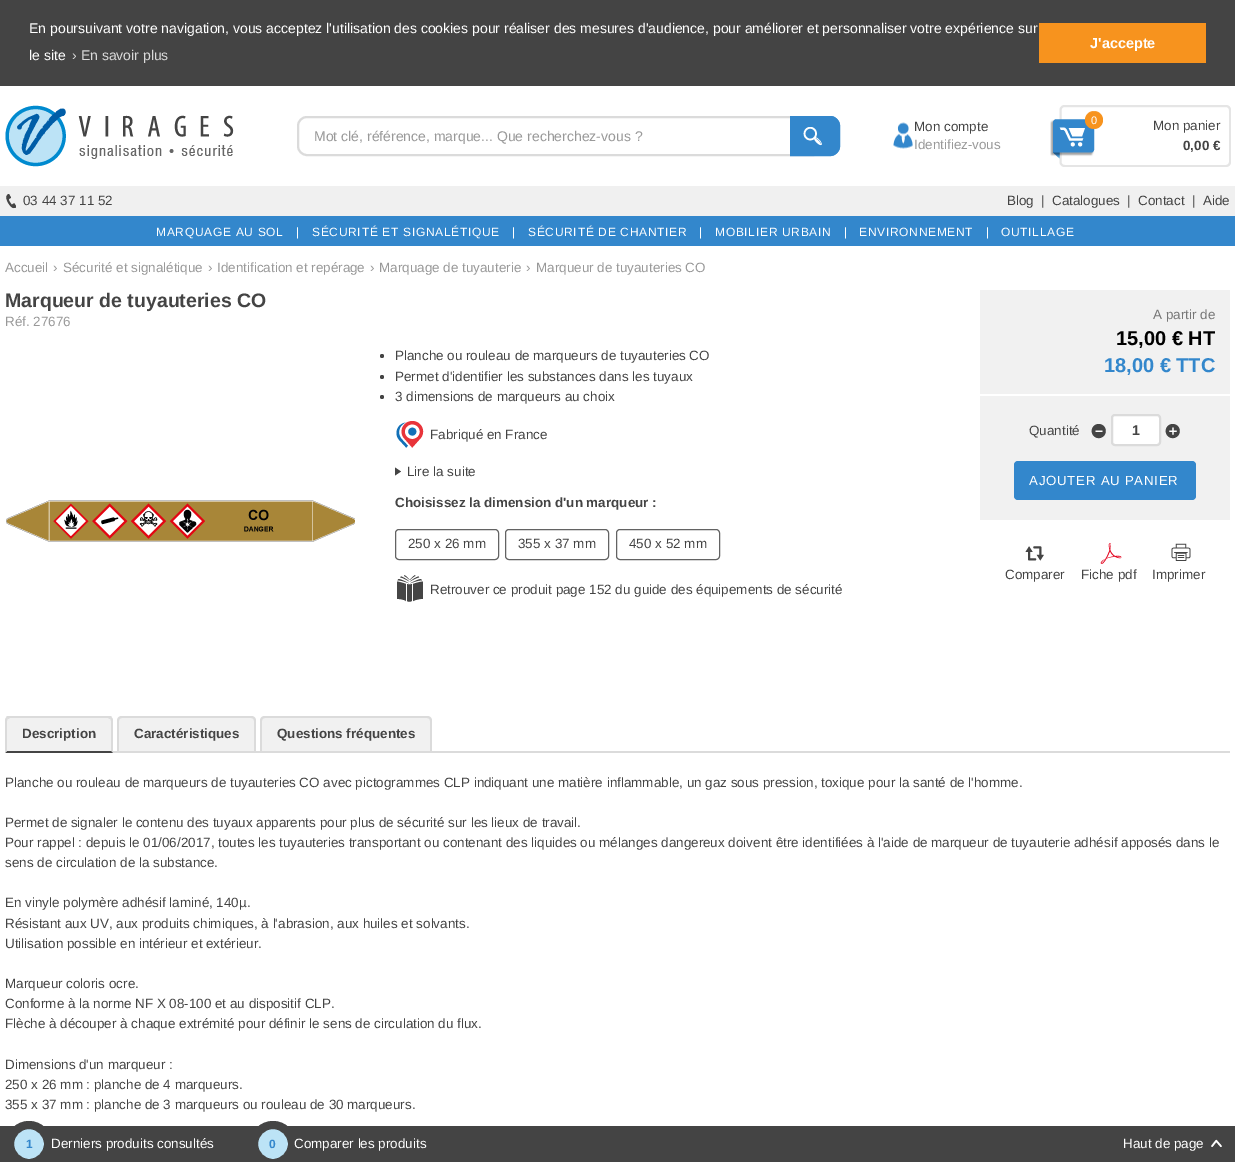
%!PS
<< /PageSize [1235 1162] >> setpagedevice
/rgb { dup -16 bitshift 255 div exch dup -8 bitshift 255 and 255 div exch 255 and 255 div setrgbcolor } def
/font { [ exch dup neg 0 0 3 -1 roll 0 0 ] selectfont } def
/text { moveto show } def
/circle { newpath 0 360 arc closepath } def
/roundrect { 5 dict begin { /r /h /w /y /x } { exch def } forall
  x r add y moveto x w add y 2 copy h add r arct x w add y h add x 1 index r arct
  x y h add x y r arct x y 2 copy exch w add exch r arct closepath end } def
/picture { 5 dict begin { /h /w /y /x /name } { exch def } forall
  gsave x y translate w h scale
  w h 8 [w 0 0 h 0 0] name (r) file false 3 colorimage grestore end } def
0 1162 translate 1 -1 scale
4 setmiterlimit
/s1 { /LiberationSans-Regular 14 font 16#FFFFFF rgb } def
/s2 { /LiberationSans-Regular 14 font 16#DADADA rgb } def
/s3 { /LiberationSans-Bold 14.5 font 16#FFFFFF rgb } def
/s4 { /LiberationSans-Regular 14 font 16#999999 rgb } def
/s5 { /LiberationSans-Regular 13.45 font 16#444444 rgb } def
/s6 { /LiberationSans-Regular 13.45 font 16#999999 rgb } def
/s7 { /LiberationSans-Regular 11 font 16#FFFFFF rgb } def
/s8 { /LiberationSans-Bold 13.45 font 16#444444 rgb } def
/s9 { /LiberationSans-Bold 19.5 font 16#444444 rgb } def
/s10 { /LiberationSans-Regular 13.45 font 16#777777 rgb } def
/s11 { /LiberationSans-Bold 20 font 16#000000 rgb } def
/s12 { /LiberationSans-Bold 20 font 16#3387CC rgb } def
/s13 { /LiberationSans-Bold 14 font 16#444444 rgb } def
/s14 { /LiberationSans-Bold 12 font 16#3387CC rgb } def
/s15 { /LiberationSans-Regular 13.45 font 16#FFFFFF rgb } def
16#FFFFFF rgb
0 0 1235 1162 rectfill
16#444444 rgb
0 0 1235 86 rectfill
s1
(En poursuivant votre navigation, vous acceptez l'utilisation des cookies pour réaliser des mesures d'audience, pour améliorer et personnaliser votre expérience sur) 29 33 text
(le site) 29 60 text
s2
(› En savoir plus) 72 60 text
16#F7931E rgb
1039 23 167 40 rectfill
s3
(J'accepte) 1090 48 text
(pic1.raw) 5 105 229 62 picture
16#DBDBDB rgb
2 setlinewidth
307 117 moveto 813 117 lineto 813 155 lineto 307 155 lineto 302 155 298 151 298 146 curveto 298 126 lineto 298 121 302 117 307 117 curveto closepath stroke
s4
(Mot clé, référence, marque... Que recherchez-vous ?) 314 141 text
16#3387CC rgb
790 116 moveto 830 116 lineto 835.5 116 840 120.5 840 126 curveto 840 146 lineto 840 151.5 835.5 156 830 156 curveto 790 156 lineto closepath fill
(pic2.raw) 803 127 19 19 picture
1 setlinewidth
790.5 116.5 moveto 830 116.5 lineto 835 116.5 839.5 121 839.5 126 curveto 839.5 146 lineto 839.5 151 835 155.5 830 155.5 curveto 790.5 155.5 lineto closepath stroke
(pic3.raw) 893 122 20 27 picture
s5
(Mon compte) 914 131 text
s6
(Identifiez-vous) 914 149 text
(pic4.raw) 1050 105 181 62 picture
(pic5.raw) 1085 111 18 18 picture
s7
(0) 1091 124 text
s5
(Mon panier) 1153 130 text
s8
(0,00 €) 1183 150 text
16#F0F0F0 rgb
0 186 1235 30 rectfill
(pic6.raw) 6 194 10 15 picture
s5
(03 44 37 11 52) 23 205 text
(Blog) 1007 205 text
(|) 1041 205 text
(Catalogues) 1052 205 text
(|) 1127 205 text
(Contact) 1138 205 text
(|) 1192 205 text
(Aide) 1203 205 text
16#3387CC rgb
0 216 1235 30 rectfill
/LiberationSans-Regular 12 font
16#FFFFFF rgb
156 236 moveto 0.7 0 (MARQUAGE AU SOL   |) ashow
312 236 moveto 0.7 0 (SÉCURITÉ ET SIGNALÉTIQUE   |) ashow
528 236 moveto 0.7 0 (SÉCURITÉ DE CHANTIER   |) ashow
715 236 moveto 0.7 0 (MOBILIER URBAIN   |) ashow
859 236 moveto 0.7 0 (ENVIRONNEMENT   |) ashow
1001 236 moveto 0.7 0 (OUTILLAGE) ashow
s6
(Accueil) 5 272 text
(›) 53 272 text
(Sécurité et signalétique) 63 272 text
(›) 208 272 text
(Identification et repérage) 217 272 text
(›) 370 272 text
(Marquage de tuyauterie) 379 272 text
(›) 526 272 text
(Marqueur de tuyauteries CO) 536 272 text
s9
(Marqueur de tuyauteries CO) 5 307 text
s6
(Réf. 27676) 5 326 text
(pic7.raw) 6 500 349 42 picture
16#444444 rgb
382 356 2 circle fill
(Planche ou rouleau de marqueurs de tuyauteries CO) 395 360 text
382 377 2 circle fill
(Permet d'identifier les substances dans les tuyaux) 395 381 text
382 397 2 circle fill
(3 dimensions de marqueurs au choix) 395 401 text
(pic8.raw) 396 421 28 27 picture
(Fabriqué en France) 430 439 text
(pic9.raw) 395 467 6 9 picture
(Lire la suite) 407 476 text
s8
(Choisissez la dimension d'un marqueur :) 395 507 text
16#636363 rgb
395.5 529.5 103 30 3.5 roundrect stroke
s5
(250 x 26 mm) 408 548 text
16#636363 rgb
505.5 529.5 103 30 3.5 roundrect stroke
s5
(355 x 37 mm) 518 548 text
16#636363 rgb
616.5 529.5 103 30 3.5 roundrect stroke
s5
(450 x 52 mm) 629 548 text
(pic10.raw) 397 575 26 27 picture
(Retrouver ce produit page 152 du guide des équipements de sécurité) 430 594 text
16#F1F1F1 rgb
980 290 250 104 rectfill
s10
(A partir de) 1153 319 text
s11
(15,00 € HT) 1116 345 text
s12
(18,00 € TTC) 1104 372 text
16#F1F1F1 rgb
980 396 250 124 rectfill
s5
(Quantité) 1029 435 text
(pic11.raw) 1091 424 15 15 picture
16#FFFFFF rgb
1112 415 48 30 3 roundrect gsave fill grestore
16#DBDBDB rgb
2 setlinewidth
stroke
s13
(1) 1132 435 text
(pic12.raw) 1165 424 15 15 picture
16#3387CC rgb
1014 461 182 39 4 roundrect fill
/LiberationSans-Regular 13.25 font
16#FFFFFF rgb
1029 485 moveto 0.75 0 (AJOUTER AU PANIER) ashow
(pic13.raw) 1025 546 19 15 picture
s5
(Comparer) 1005 579 text
(pic14.raw) 1100 543 22 21 picture
(Fiche pdf) 1081 579 text
(pic15.raw) 1171 543 20 18 picture
(Imprimer) 1152 579 text
16#F1F1F1 rgb
10 716 moveto 108 716 lineto 111 716 113 718 113 721 curveto 113 753 lineto 5 753 lineto 5 721 lineto 5 718 7 716 10 716 curveto closepath fill
16#DBDBDB rgb
10 716 moveto 8 716 7 716 6 717 curveto 8 719 lineto 10 718 lineto 108 718 lineto 110 719 lineto 112 717 lineto 111 716 110 716 108 716 curveto closepath fill
113 753 moveto 113 721 lineto 113 719.5 112.5 718 111.5 717.5 curveto 110 719 lineto 111 719 111 720 111 721 curveto 111 751 lineto closepath fill
16#444444 rgb
113 753 moveto 111 751 lineto 7 751 lineto 5 753 lineto closepath fill
16#DBDBDB rgb
5 753 moveto 7 751 lineto 7 721 lineto 7 720 7 719 8 719 curveto 6.5 717.5 lineto 5.5 718 5 719.5 5 721 curveto closepath fill
s8
(Description) 22 738 text
16#F1F1F1 rgb
122 716 moveto 251 716 lineto 254 716 256 718 256 721 curveto 256 751 lineto 117 751 lineto 117 721 lineto 117 718 119 716 122 716 curveto closepath fill
16#DBDBDB rgb
122 716 moveto 251 716 lineto 254 716 256 718 256 721 curveto 256 751 lineto 117 751 lineto 117 721 lineto 117 718 119 716 122 716 curveto closepath 122 718 moveto 251 718 lineto 253 718 254 719 254 721 curveto 254 751 lineto 119 751 lineto 119 721 lineto 119 719 120 718 122 718 curveto closepath eofill
s8
(Caractéristiques) 134 738 text
16#F1F1F1 rgb
265 716 moveto 427 716 lineto 430 716 432 718 432 721 curveto 432 751 lineto 260 751 lineto 260 721 lineto 260 718 262 716 265 716 curveto closepath fill
16#DBDBDB rgb
265 716 moveto 427 716 lineto 430 716 432 718 432 721 curveto 432 751 lineto 260 751 lineto 260 721 lineto 260 718 262 716 265 716 curveto closepath 265 718 moveto 427 718 lineto 429 718 430 719 430 721 curveto 430 751 lineto 262 751 lineto 262 721 lineto 262 719 263 718 265 718 curveto closepath eofill
s8
(Questions fréquentes) 277 738 text
16#DBDBDB rgb
113 751 1117 2 rectfill
s5
(Planche ou rouleau de marqueurs de tuyauteries CO avec pictogrammes CLP indiquant une matière inflammable, un gaz sous pression, toxique pour la santé de l'homme.) 5 787 text
(Permet de signaler le contenu des tuyaux apparents pour plus de sécurité sur les lieux de travail.) 5 827 text
(Pour rappel : depuis le 01/06/2017, toutes les tuyauteries transportant ou contenant des liquides ou mélanges dangereux doivent être identifiées à l'aide de marqueur de tuyauterie adhésif apposés dans le) 5 847 text
(sens de circulation de la substance.) 5 867 text
(En vinyle polymère adhésif laminé, 140µ.) 5 907 text
(Résistant aux UV, aux produits chimiques, à l'abrasion, aux huiles et solvants.) 5 928 text
(Utilisation possible en intérieur et extérieur.) 5 948 text
(Marqueur coloris ocre.) 5 988 text
(Conforme à la norme NF X 08-100 et au dispositif CLP.) 5 1008 text
(Flèche à découper à chaque extrémité pour définir le sens de circulation du flux.) 5 1028 text
(Dimensions d'un marqueur :) 5 1069 text
(250 x 26 mm : planche de 4 marqueurs.) 5 1089 text
(355 x 37 mm : planche de 3 marqueurs ou rouleau de 30 marqueurs.) 5 1109 text
0 1126 1235 36 rectfill
5 setlinewidth
29 1144 20.5 circle stroke
16#BCE3F6 rgb
29 1144 16.5 circle gsave fill grestore
16#444444 rgb
3 setlinewidth
stroke
s14
(1) 26 1148 text
s15
(Derniers produits consultés) 51 1148 text
16#444444 rgb
5 setlinewidth
273 1144 20.5 circle stroke
16#BCE3F6 rgb
273 1144 16.5 circle gsave fill grestore
16#444444 rgb
3 setlinewidth
stroke
s14
(0) 269 1148 text
s15
(Comparer les produits) 294 1148 text
(Haut de page) 1123 1148 text
(pic16.raw) 1211 1139 11 8 picture
showpage
